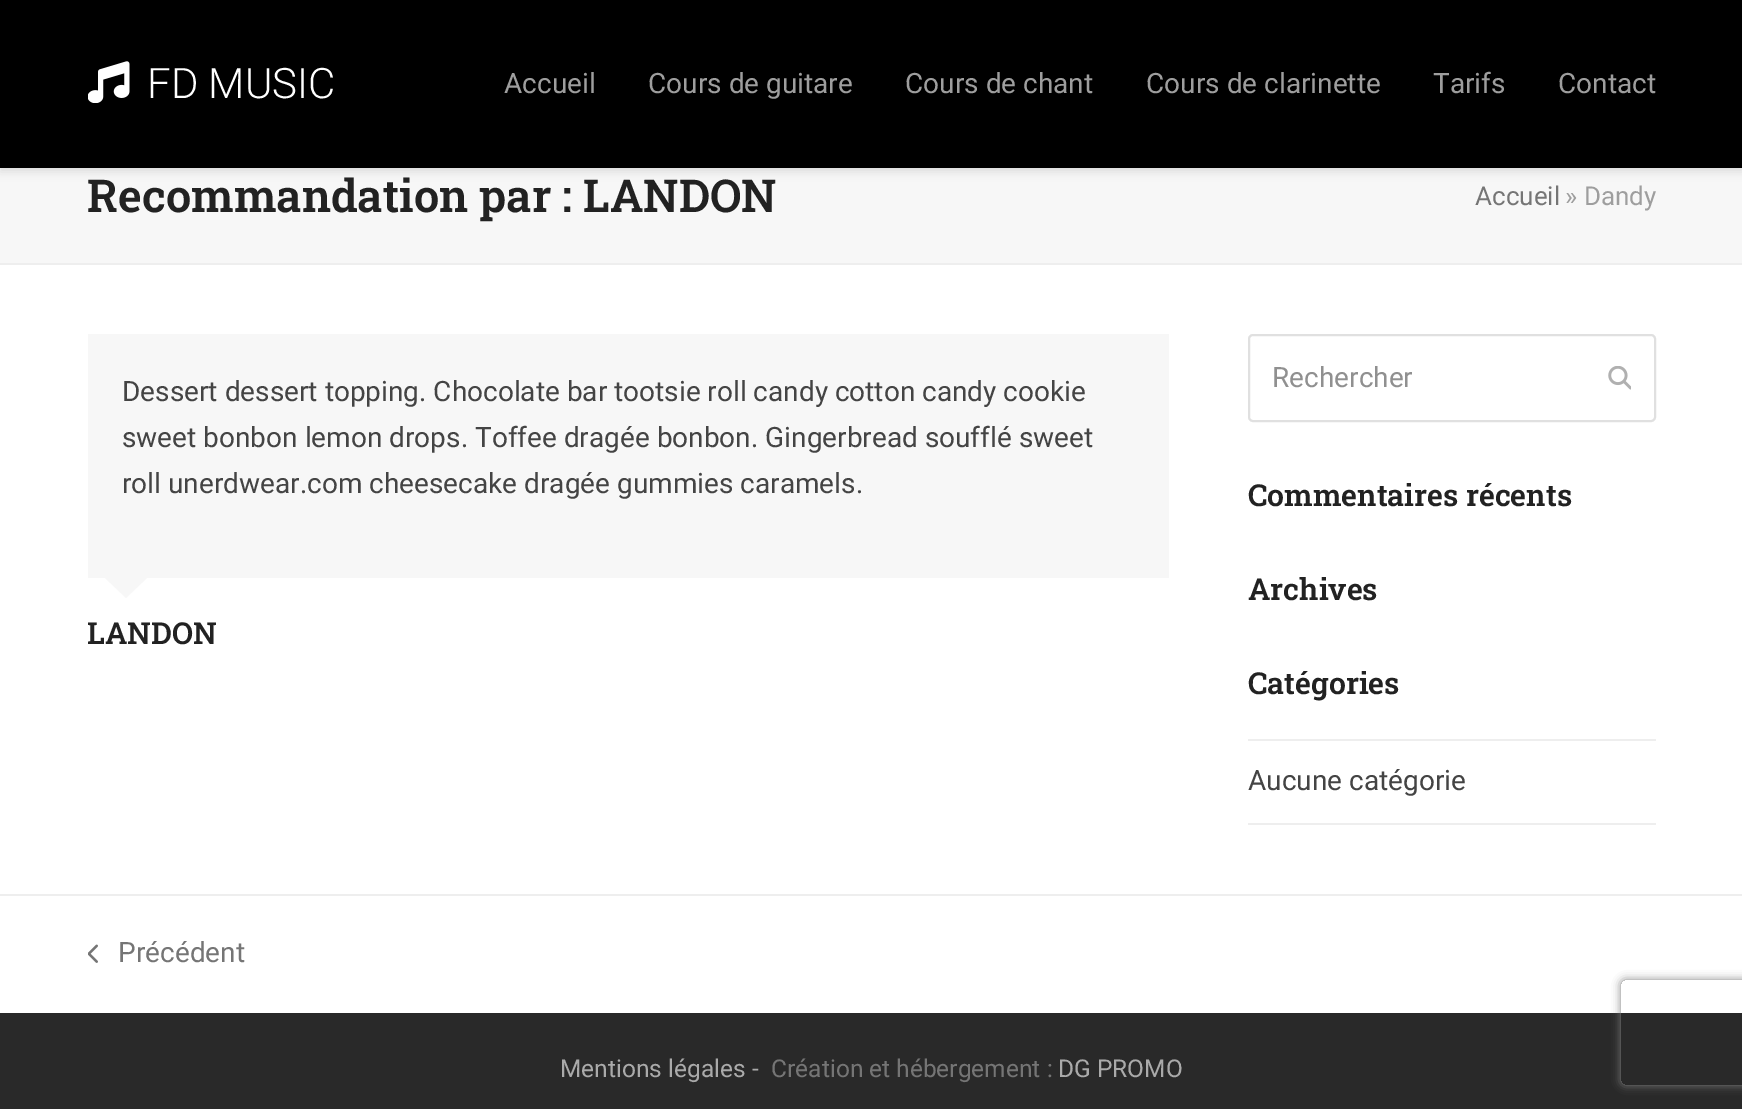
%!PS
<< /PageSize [1742 1109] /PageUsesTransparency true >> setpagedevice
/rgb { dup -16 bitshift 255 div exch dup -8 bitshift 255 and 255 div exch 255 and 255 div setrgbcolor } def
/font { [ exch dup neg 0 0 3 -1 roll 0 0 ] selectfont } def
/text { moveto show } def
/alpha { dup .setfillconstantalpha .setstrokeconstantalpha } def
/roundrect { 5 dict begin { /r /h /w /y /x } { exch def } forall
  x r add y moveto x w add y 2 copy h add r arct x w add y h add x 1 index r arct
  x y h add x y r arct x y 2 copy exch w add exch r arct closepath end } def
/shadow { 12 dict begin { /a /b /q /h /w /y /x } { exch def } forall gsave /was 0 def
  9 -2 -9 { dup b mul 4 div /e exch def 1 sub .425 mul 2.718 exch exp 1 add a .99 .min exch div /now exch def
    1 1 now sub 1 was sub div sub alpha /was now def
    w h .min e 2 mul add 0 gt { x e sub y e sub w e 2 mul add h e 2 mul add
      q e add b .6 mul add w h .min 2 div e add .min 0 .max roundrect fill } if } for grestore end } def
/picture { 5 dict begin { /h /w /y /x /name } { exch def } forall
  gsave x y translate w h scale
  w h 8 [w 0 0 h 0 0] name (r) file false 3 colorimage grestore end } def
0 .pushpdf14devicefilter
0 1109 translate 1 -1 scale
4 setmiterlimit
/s1 { /Roboto-Light 42 font 16#FFFFFF rgb } def
/s2 { /Roboto-Regular 28 font 16#9E9E9E rgb } def
/s3 { /RobotoSlab-SemiBold 45.25 font 16#222222 rgb } def
/s4 { /Roboto-Regular 26 font 16#757575 rgb } def
/s5 { /Roboto-Regular 26 font 16#9E9E9E rgb } def
/s6 { /Roboto-Regular 28 font 16#444444 rgb } def
/s7 { /RobotoSlab-SemiBold 30.25 font 16#222222 rgb } def
/s8 { /Roboto-Regular 28 font 16#909090 rgb } def
/s9 { /Roboto-Regular 28 font 16#757575 rgb } def
/s10 { /Roboto-Regular 24.5 font 16#AAAAAA rgb } def
/s11 { /Roboto-Regular 24.5 font 16#757575 rgb } def
16#FFFFFF rgb
0 0 1742 1109 rectfill
16#F7F7F7 rgb
0 168 1742 95 rectfill
16#000000 rgb
0 4 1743 168 0 4.5 0.1 shadow
0 0 1742 168 rectfill
(pic1.raw) 88 61 42 42 picture
s1
(FD MUSIC) 147 98 text
s2
(Accueil) 504 93 text
(Cours de guitare) 648 93 text
(Cours de chant) 905 93 text
(Cours de clarinette) 1146 93 text
(Tarifs) 1433 93 text
(Contact) 1558 93 text
16#EEEEEE rgb
0 263 1742 2 rectfill
s3
(Recommandation par : LANDON) 87 212 text
s4
(Accueil) 1475 205 text
s5
(» Dandy) 1565 205 text
16#F7F7F7 rgb
88 334 1081 244 rectfill
s6
(Dessert dessert topping. Chocolate bar tootsie roll candy cotton candy cookie) 122 401 text
(sweet bonbon lemon drops. Toffee dragée bonbon. Gingerbread soufflé sweet) 122 447 text
(roll unerdwear.com cheesecake dragée gummies caramels.) 122 493 text
16#F7F7F7 rgb
105 578 moveto 147 578 lineto 126 598 lineto closepath fill
s7
(LANDON) 87 644 text
16#E0E0E0 rgb
2 setlinewidth
1249 335 406 86 4 roundrect stroke
s8
(Rechercher) 1272 387 text
(pic2.raw) 1608 366 23 24 picture
s7
(Commentaires récents) 1248 506 text
(Archives) 1248 600 text
(Catégories) 1248 694 text
16#EEEEEE rgb
1248 739 408 2 rectfill
1248 823 408 2 rectfill
s6
(Aucune catégorie) 1248 790 text
16#EEEEEE rgb
0 894 1742 2 rectfill
(pic3.raw) 88 944 10 19 picture
s9
(Précédent) 118 962 text
16#292929 rgb
0 1013 1742 96 rectfill
s10
(Mentions légales -) 560 1077 text
s11
(Création et hébergement :) 771 1077 text
s10
(DG PROMO) 1058 1077 text
gsave
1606 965 moveto 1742 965 lineto 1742 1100 lineto 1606 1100 lineto closepath 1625 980 moveto 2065 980 lineto 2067 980 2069 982 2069 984 curveto 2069 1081 lineto 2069 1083 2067 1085 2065 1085 curveto 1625 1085 lineto 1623 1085 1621 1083 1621 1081 curveto 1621 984 lineto 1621 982 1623 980 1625 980 curveto closepath eoclip newpath
16#808080 rgb
1621 980 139 105 4 4.5 1 shadow
grestore
.poppdf14devicefilter showpage
